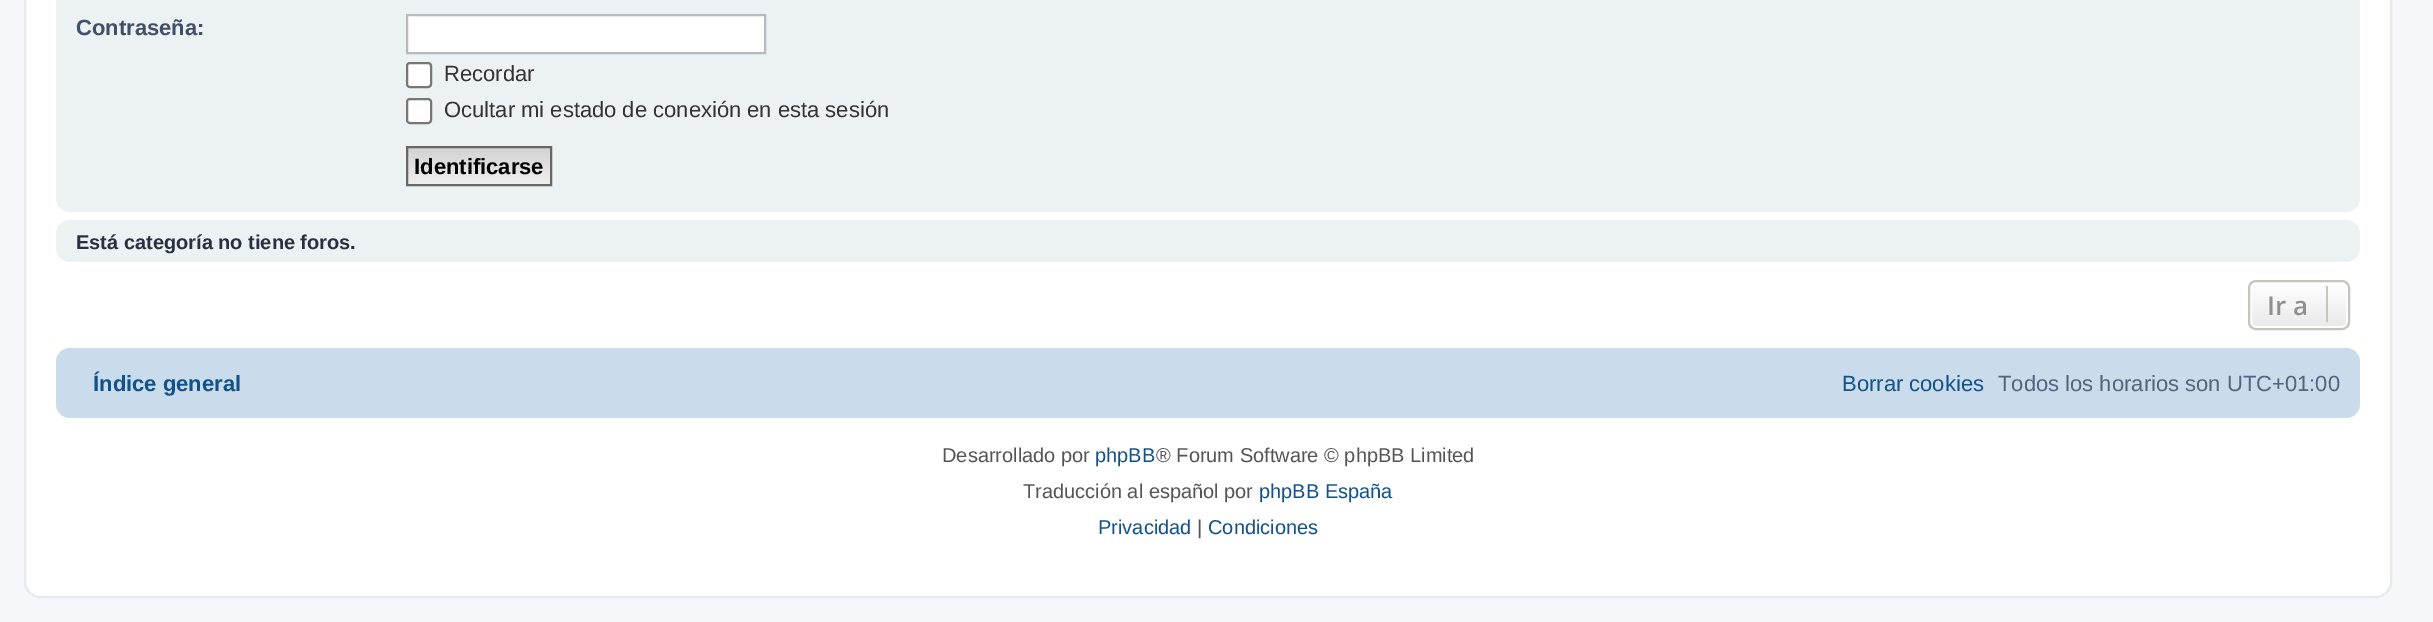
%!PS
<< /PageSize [2433 622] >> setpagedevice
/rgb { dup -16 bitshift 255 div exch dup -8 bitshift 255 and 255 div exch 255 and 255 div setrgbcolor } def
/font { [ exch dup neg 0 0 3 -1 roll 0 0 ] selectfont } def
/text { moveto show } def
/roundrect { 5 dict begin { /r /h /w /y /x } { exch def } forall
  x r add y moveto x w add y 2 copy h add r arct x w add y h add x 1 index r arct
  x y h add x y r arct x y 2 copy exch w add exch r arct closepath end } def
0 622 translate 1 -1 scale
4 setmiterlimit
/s1 { /LiberationSans-Bold 22 font 16#425067 rgb } def
/s2 { /LiberationSans-Regular 22 font 16#333333 rgb } def
/s3 { /LiberationSans-Bold 22 font 16#000000 rgb } def
/s4 { /LiberationSans-Bold 20 font 16#28313F rgb } def
/s5 { /OpenSans-SemiBold 26 font 16#8F8F8F rgb } def
/s6 { /LiberationSans-Bold 22 font 16#105289 rgb } def
/s7 { /LiberationSans-Regular 22 font 16#105289 rgb } def
/s8 { /LiberationSans-Regular 22 font 16#536482 rgb } def
/s9 { /LiberationSans-Regular 20 font 16#555555 rgb } def
/s10 { /LiberationSans-Regular 20 font 16#105289 rgb } def
16#F5F7FA rgb
0 0 2433 622 rectfill
16#FFFFFF rgb
25 -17 2366 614 15 roundrect gsave fill grestore
16#E6E9ED rgb
2 setlinewidth
stroke
16#ECF1F3 rgb
56 -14 2304 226 14 roundrect fill
s1
(Contraseña:) 76 35 text
16#FFFFFF rgb
407 15 moveto 765 15 lineto 765 53 lineto 407 53 lineto closepath gsave fill grestore
16#B4BAC0 rgb
stroke
16#FFFFFF rgb
407 63 24 24 3 roundrect gsave fill grestore
16#767676 rgb
stroke
s2
(Recordar) 444 81 text
16#FFFFFF rgb
407 99 24 24 3 roundrect gsave fill grestore
16#767676 rgb
stroke
s2
(Ocultar mi estado de conexión en esta sesión) 444 117 text
gsave 408 148 moveto 550 148 lineto 550 184 lineto 408 184 lineto closepath clip newpath
<< /ShadingType 2 /ColorSpace /DeviceRGB /Coords [479 148 479 184] /Extend [true true] /Function << /FunctionType 2 /Domain [0 1] /C0 [0.824 0.824 0.824] /C1 [0.937 0.937 0.937] /N 1 >> >> shfill grestore
16#666666 rgb
407 147 144 38 rectstroke
s3
(Identificarse) 414 174 text
16#ECF1F3 rgb
56 220 2304 42 14 roundrect fill
s4
(Está categoría no tiene foros.) 76 249 text
gsave
2248 280 102 50 8 roundrect clip newpath
gsave 2248 282 moveto 2350 282 lineto 2350 328 lineto 2248 328 lineto closepath clip newpath
<< /ShadingType 2 /ColorSpace /DeviceRGB /Coords [2299 282 2299 328] /Extend [true true] /Function << /FunctionType 2 /Domain [0 1] /C0 [1 1 1] /C1 [0.914 0.914 0.914] /N 1 >> >> shfill grestore
grestore
16#FFFFFF rgb
2251 283 96 44 5 roundrect stroke
16#C7C3BF rgb
2249 281 100 48 7 roundrect stroke
s5
(Ir a) 2267 315 text
16#C7C3BF rgb
2326 286 2 36 rectfill
16#CADCEB rgb
56 348 2304 70 14 roundrect fill
s6
(Índice general) 93 391 text
s7
(Borrar cookies) 1842 391 text
s8
(Todos los horarios son UTC+01:00) 1998 391 text
s9
(Desarrollado por) 942 462 text
s10
(phpBB) 1095 462 text
s9
(® Forum Software © phpBB Limited) 1156 462 text
(Traducción al español por) 1023 498 text
s10
(phpBB España) 1259 498 text
(Privacidad) 1098 534 text
s9
(|) 1197 534 text
s10
(Condiciones) 1208 534 text
showpage
